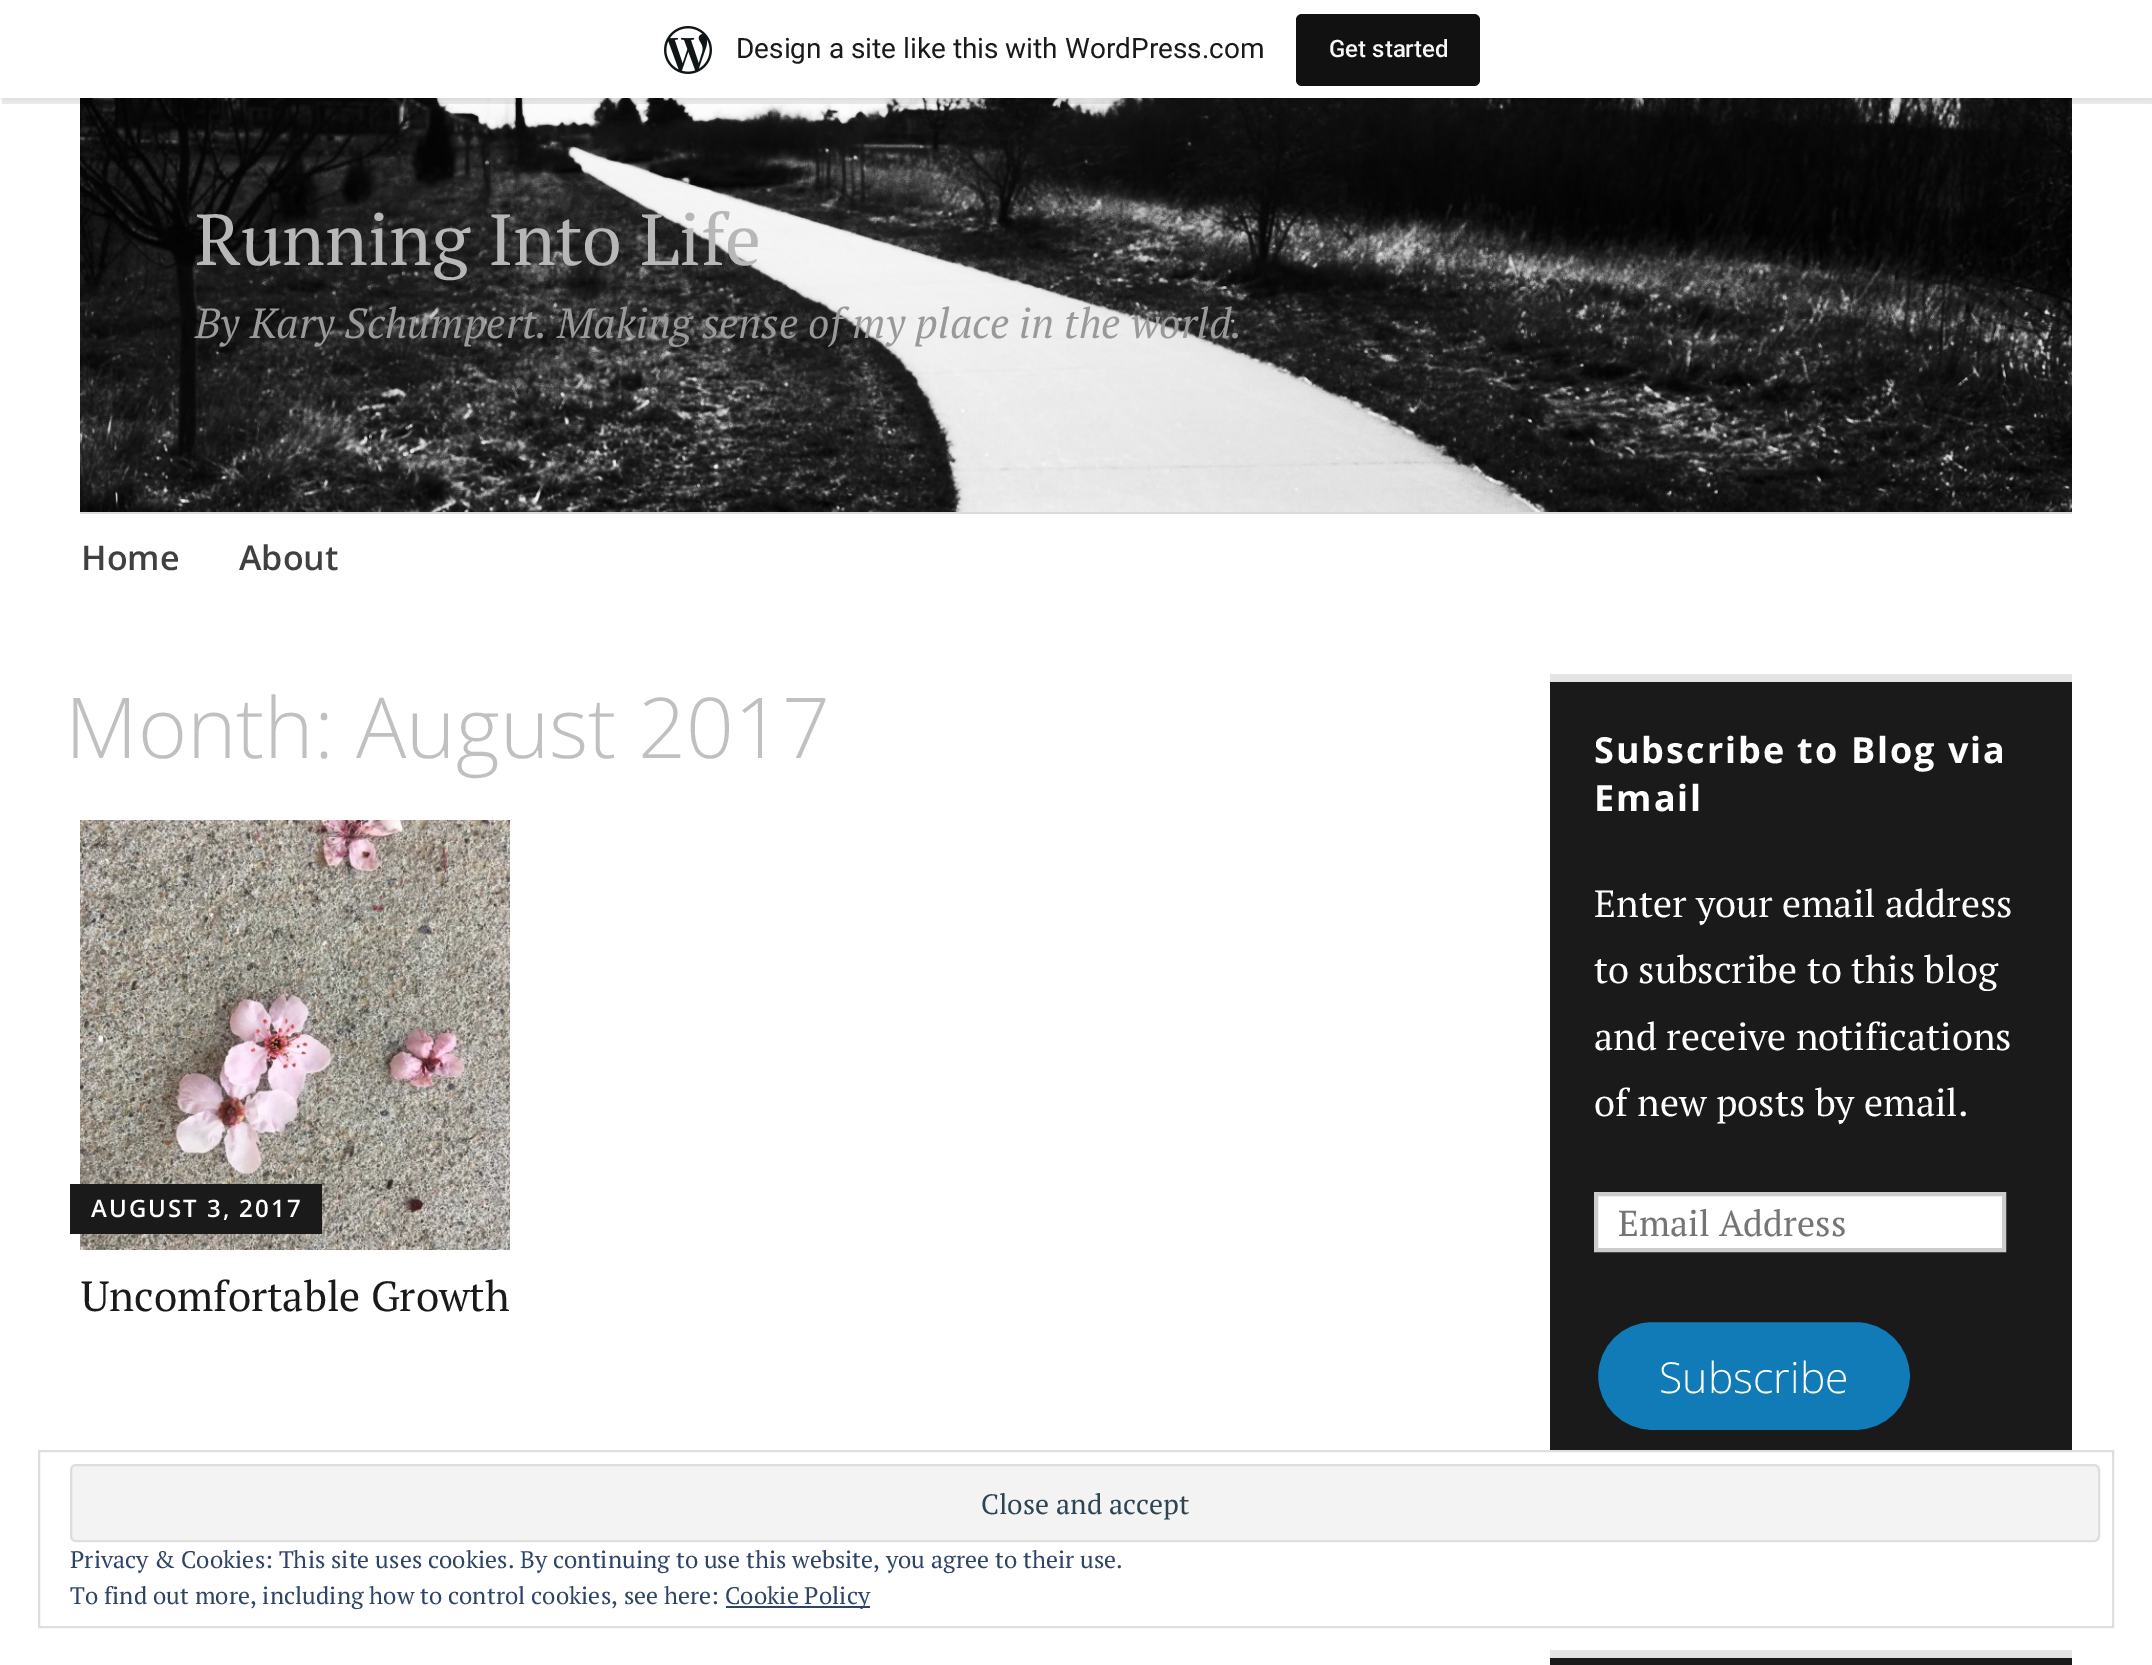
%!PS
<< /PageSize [2152 1665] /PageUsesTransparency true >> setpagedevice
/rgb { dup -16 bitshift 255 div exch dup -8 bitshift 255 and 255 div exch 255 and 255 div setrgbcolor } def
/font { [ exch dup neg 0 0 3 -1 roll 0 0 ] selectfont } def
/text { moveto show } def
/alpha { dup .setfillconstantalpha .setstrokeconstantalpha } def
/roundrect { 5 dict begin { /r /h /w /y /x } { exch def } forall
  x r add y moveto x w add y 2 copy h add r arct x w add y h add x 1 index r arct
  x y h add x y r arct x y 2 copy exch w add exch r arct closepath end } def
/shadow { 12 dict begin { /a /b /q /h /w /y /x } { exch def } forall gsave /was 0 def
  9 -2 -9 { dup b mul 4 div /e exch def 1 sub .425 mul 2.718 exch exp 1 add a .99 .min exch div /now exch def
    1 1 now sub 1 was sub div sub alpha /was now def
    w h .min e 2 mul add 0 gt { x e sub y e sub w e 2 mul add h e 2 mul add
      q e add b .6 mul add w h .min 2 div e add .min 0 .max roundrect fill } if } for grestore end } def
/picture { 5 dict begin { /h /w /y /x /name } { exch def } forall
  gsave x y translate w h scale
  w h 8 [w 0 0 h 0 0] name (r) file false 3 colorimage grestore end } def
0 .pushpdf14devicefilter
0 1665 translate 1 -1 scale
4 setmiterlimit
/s1 { /Roboto-Regular 28 font 16#1A1A1A rgb } def
/s2 { /Roboto-Medium 24 font 16#F6F7F7 rgb } def
/s3 { /PTSerif-Regular 72 font 16#B7B7B7 rgb } def
/s4 { /PTSerif-Italic 42 font 16#999999 rgb } def
/s5 { /OpenSans-SemiBold 34 font 16#404040 rgb } def
/s6 { /OpenSans-Light 84 font 16#C0C0C0 rgb } def
/s7 { /PTSerif-Regular 42 font 16#1A1A1A rgb } def
/s8 { /PTSerif-Regular 38 font 16#FFFFFF rgb } def
/s9 { /PTSerif-Regular 36 font 16#757575 rgb } def
/s10 { /OpenSans-Light 42.75 font 16#FFFFFF rgb } def
/s11 { /PTSerif-Regular 28 font 16#2E4453 rgb } def
/s12 { /PTSerif-Regular 24 font 16#2E4467 rgb } def
16#FFFFFF rgb
0 0 2152 1665 rectfill
(pic2.raw) 80 98 1992 414 picture
16#000000 rgb
0 2 2152 98 0 2 0.05 shadow
0.08 alpha
2 98 moveto 2 104 lineto 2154 104 lineto 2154 6 lineto 2152 6 lineto 2152 98 lineto closepath fill
1 alpha
16#FFFFFF rgb
0 0 2152 98 rectfill
(pic1.raw) 664 26 48 48 picture
s1
(Design a site like this with WordPress.com) 736 58 text
16#111111 rgb
1296 14 184 72 6 roundrect fill
s2
(Get started) 1329 57 text
s3
(Running Into Life) 195 265 text
s4
(By Kary Schumpert. Making sense of my place in the world.) 195 338 text
16#D9D9D9 rgb
80 512 1992 2 rectfill
s5
(Home) 81 570 text
(About) 239 570 text
s6
(Month: August 2017) 65 758 text
(pic3.raw) 80 820 430 430 picture
16#1A1A1A rgb
70 1184 252 50 rectfill
/OpenSans-SemiBold 24 font
16#FFFFFF rgb
91 1217 moveto 2 0 (AUGUST 3, 2017) ashow
s7
(Uncomfortable Growth) 81 1311 text
1550 682 522 768 rectfill
16#E4E4E4 rgb
1550 674 522 8 rectfill
/OpenSans-Bold 36 font
16#FFFFFF rgb
1594 763 moveto 2 0 (Subscribe to Blog via) ashow
1594 811 moveto 2 0 (Email) ashow
s8
(Enter your email address) 1594 917 text
(to subscribe to this blog) 1594 983 text
(and receive notifications) 1594 1050 text
(of new posts by email.) 1594 1116 text
1596 1194 moveto 2004 1194 lineto 2004 1250 lineto 1596 1250 lineto closepath gsave fill grestore
16#CCCCCC rgb
4 setlinewidth
stroke
s9
(Email Address) 1618 1236 text
16#117BB8 rgb
1596 1320 316 112 56 roundrect gsave fill grestore
16#1A1A1A rgb
stroke
s10
(Subscribe) 1659 1393 text
16#1A1A1A rgb
1550 1658 522 7 rectfill
16#E4E4E4 rgb
1550 1650 522 8 rectfill
16#DEDEDE rgb
2 setlinewidth
39 1451 2074 176 rectstroke
16#F3F3F3 rgb
71 1465 2028 76 5 roundrect gsave fill grestore
16#DEDEDE rgb
stroke
s11
(Close and accept) 981 1514 text
s12
(Privacy & Cookies: This site uses cookies. By continuing to use this website, you agree to their use.) 70 1568 text
(To find out more, including how to control cookies, see here:) 70 1604 text
726 1606 144 2 rectfill
(Cookie Policy) 725 1604 text
.poppdf14devicefilter showpage
